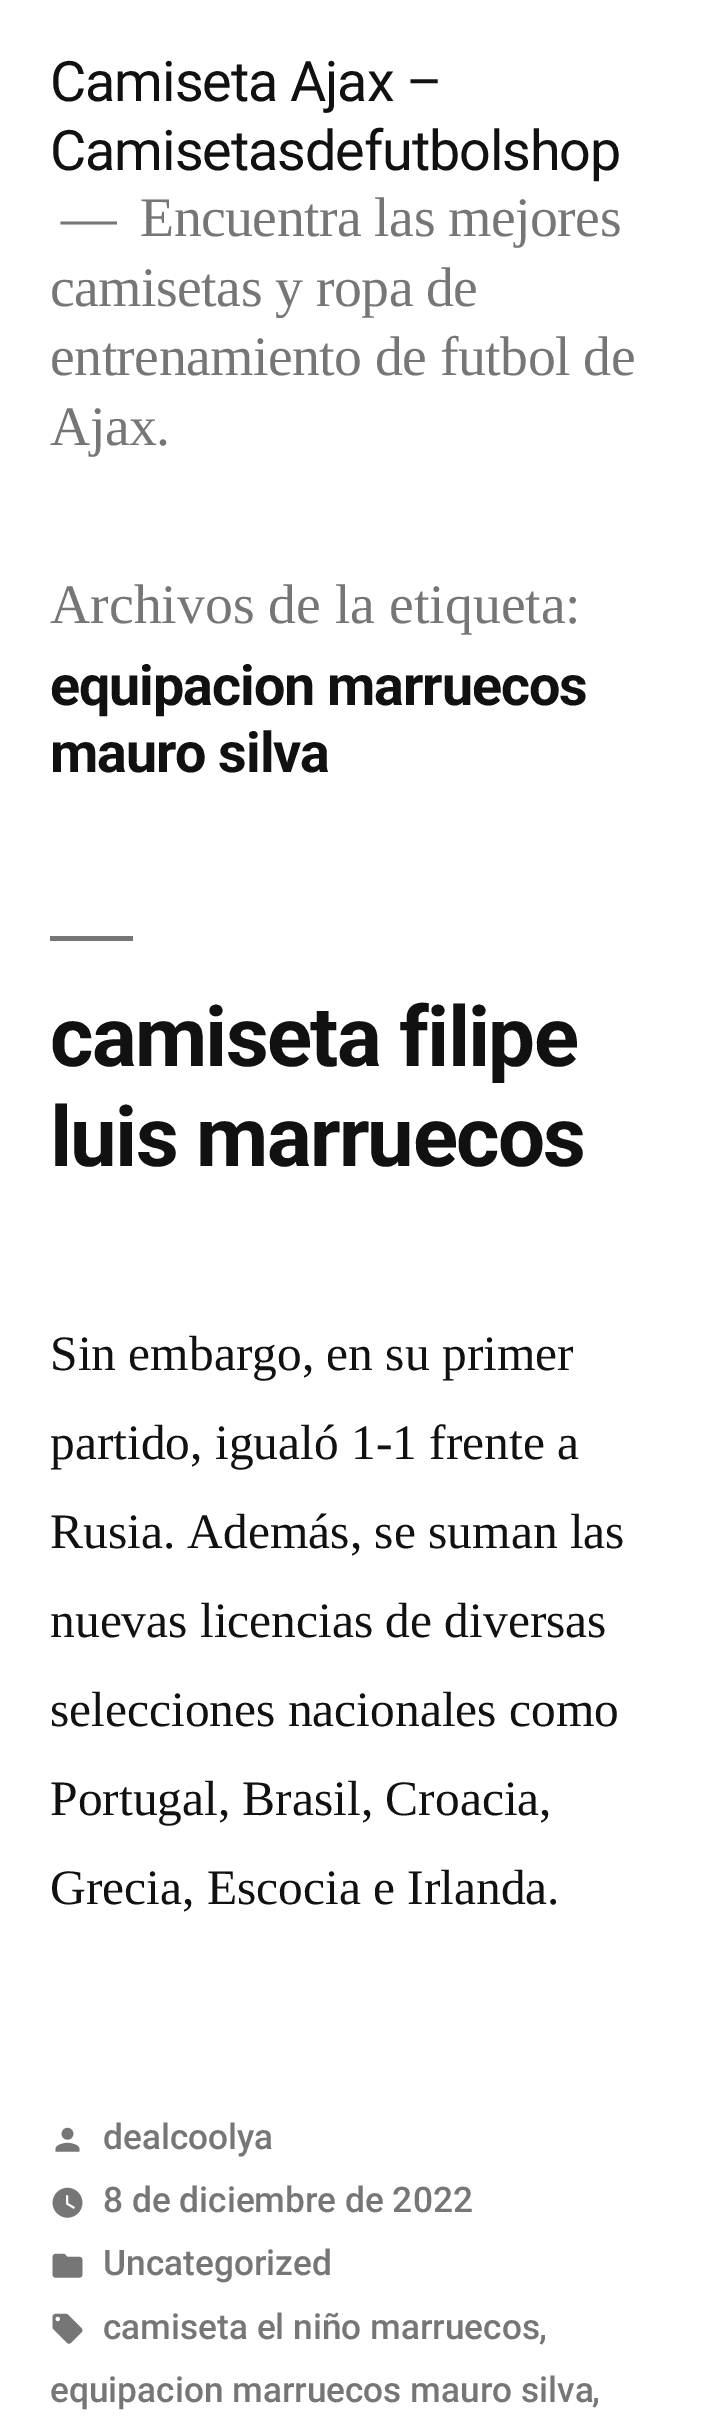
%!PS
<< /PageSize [713 2426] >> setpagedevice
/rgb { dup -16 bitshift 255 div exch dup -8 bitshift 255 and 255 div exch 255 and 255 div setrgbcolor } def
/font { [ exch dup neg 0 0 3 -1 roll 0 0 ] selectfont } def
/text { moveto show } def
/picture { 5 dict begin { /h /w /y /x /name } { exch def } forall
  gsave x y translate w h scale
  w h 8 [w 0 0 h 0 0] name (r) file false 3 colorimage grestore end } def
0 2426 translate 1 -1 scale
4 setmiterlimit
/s1 { /LiberationSerif-Regular 55.75 font 16#767676 rgb } def
/s2 { /LiberationSerif-Regular 49.5 font 16#111111 rgb } def
/s3 { /Roboto-Medium 35.25 font 16#767676 rgb } def
16#FFFFFF rgb
0 0 713 2426 rectfill
/Roboto-Regular 55.75 font
16#111111 rgb
50 101 moveto -1.1 0 (Camiseta Ajax –) ashow
50 170 moveto -1.1 0 (Camisetasdefutbolshop) ashow
/LiberationSerif-Regular 55.75 font
16#767676 rgb
61 236 moveto -0.55 0 (—) ashow
140 236 moveto -0.55 0 (Encuentra las mejores) ashow
50 306 moveto -0.55 0 (camisetas y ropa de) ashow
50 375 moveto -0.55 0 (entrenamiento de futbol de) ashow
50 445 moveto -0.55 0 (Ajax.) ashow
(Archivos de la etiqueta:) 50 623 text
/Roboto-Bold 55.75 font
16#111111 rgb
50 705 moveto -1.1 0 (equipacion marruecos) ashow
50 772 moveto -1.1 0 (mauro silva) ashow
16#767676 rgb
50 936 83 5 rectfill
/Roboto-Bold 83.5 font
16#111111 rgb
50 1066 moveto -1.7 0 (camiseta filipe) ashow
50 1166 moveto -1.7 0 (luis marruecos) ashow
s2
(Sin embargo, en su primer) 50 1370 text
(partido, igualó 1-1 frente a) 50 1459 text
(Rusia. Además, se suman las) 50 1548 text
(nuevas licencias de diversas) 50 1637 text
(selecciones nacionales como) 50 1726 text
(Portugal, Brasil, Croacia,) 50 1815 text
(Grecia, Escocia e Irlanda.) 50 1904 text
(pic1.raw) 55 2127 25 25 picture
s3
(dealcoolya) 103 2149 text
(pic2.raw) 52 2187 31 31 picture
(8 de diciembre de 2022) 103 2212 text
(pic3.raw) 52 2253 31 25 picture
(Uncategorized) 103 2275 text
(pic4.raw) 52 2313 31 31 picture
(camiseta el niño marruecos) 103 2339 text
(,) 539 2339 text
(equipacion marruecos mauro silva) 50 2402 text
(,) 592 2402 text
showpage
